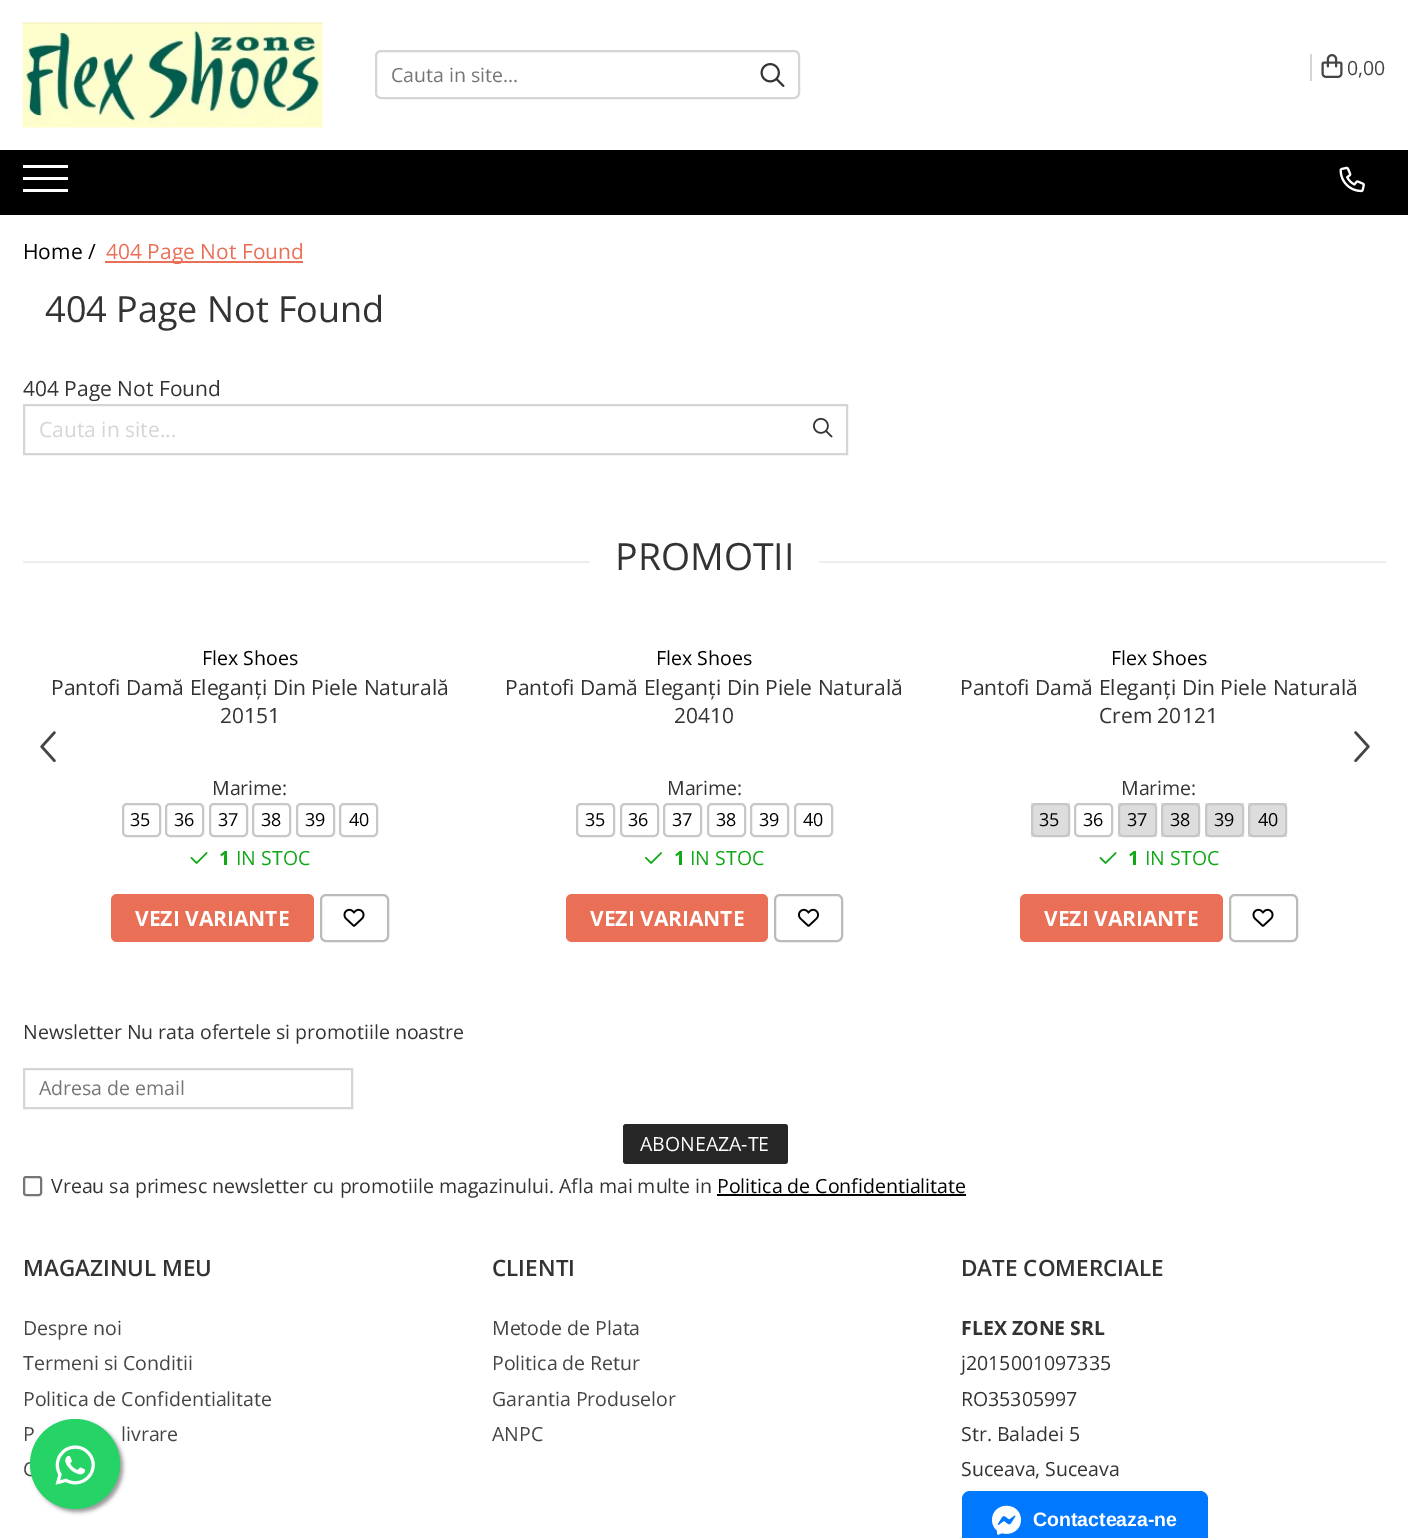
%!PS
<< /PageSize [1408 1538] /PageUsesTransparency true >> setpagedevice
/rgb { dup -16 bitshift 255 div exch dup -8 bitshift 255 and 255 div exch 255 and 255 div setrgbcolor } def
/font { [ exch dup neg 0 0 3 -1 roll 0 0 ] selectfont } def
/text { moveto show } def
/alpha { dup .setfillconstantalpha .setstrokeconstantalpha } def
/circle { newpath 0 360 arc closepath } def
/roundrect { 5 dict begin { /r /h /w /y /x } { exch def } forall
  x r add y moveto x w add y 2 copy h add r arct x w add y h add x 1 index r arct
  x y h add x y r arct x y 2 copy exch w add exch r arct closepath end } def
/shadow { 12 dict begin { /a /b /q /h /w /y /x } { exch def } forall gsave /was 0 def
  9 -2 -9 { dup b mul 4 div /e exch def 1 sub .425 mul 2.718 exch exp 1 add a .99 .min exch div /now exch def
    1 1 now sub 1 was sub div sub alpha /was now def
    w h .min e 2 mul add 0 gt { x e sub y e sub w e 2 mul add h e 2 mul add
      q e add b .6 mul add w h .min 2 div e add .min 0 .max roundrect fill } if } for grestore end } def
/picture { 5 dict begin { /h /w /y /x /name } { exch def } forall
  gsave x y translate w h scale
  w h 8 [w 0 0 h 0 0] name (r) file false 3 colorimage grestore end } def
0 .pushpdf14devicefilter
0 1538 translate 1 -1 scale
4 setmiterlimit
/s1 { /OpenSans-Regular 19.5 font 16#757575 rgb } def
/s2 { /OpenSans-Regular 19.5 font 16#444444 rgb } def
/s3 { /OpenSans-Regular 21 font 16#000000 rgb } def
/s4 { /OpenSans-Regular 21 font 16#E96F56 rgb } def
/s5 { /OpenSans-Regular 36 font 16#333333 rgb } def
/s6 { /OpenSans-Regular 21 font 16#333333 rgb } def
/s7 { /OpenSans-Regular 21 font 16#D5D5D5 rgb } def
/s8 { /OpenSans-Regular 37.5 font 16#333333 rgb } def
/s9 { /OpenSans-Regular 19.5 font 16#000000 rgb } def
/s10 { /OpenSans-Regular 19.5 font 16#333333 rgb } def
/s11 { /OpenSans-Regular 18 font 16#000000 rgb } def
/s12 { /OpenSans-Bold 19.5 font 16#11A717 rgb } def
/s13 { /OpenSans-Regular 19.5 font 16#11A717 rgb } def
/s14 { /OpenSans-Bold 21 font 16#FFFFFF rgb } def
/s15 { /OpenSans-Regular 19.5 font 16#FFFFFF rgb } def
/s16 { /OpenSans-SemiBold 22.5 font 16#333333 rgb } def
/s17 { /OpenSans-Bold 19.5 font 16#333333 rgb } def
/s18 { /LiberationSans-Bold 19.5 font 16#FFFFFF rgb } def
16#FFFFFF rgb
0 0 1408 1538 rectfill
(pic1.raw) 22 22 301 106 picture
16#D5D5D5 rgb
2 setlinewidth
376 51 423 47 5 roundrect stroke
s1
(Cauta in site...) 391 82 text
(pic2.raw) 760 63 25 24 picture
16#D5D5D5 rgb
1310 54 2 27 rectfill
(pic3.raw) 1321 54 22 24 picture
s2
(0,00) 1347 75 text
16#000000 rgb
0 150 1408 65 rectfill
16#FFFFFF rgb
23 177 45 3 rectfill
23 165 45 3 rectfill
23 189 45 3 rectfill
(pic4.raw) 1339 166 26 27 picture
s3
(Home /) 23 259 text
16#E96F56 rgb
105 261 198 2 rectfill
(404 Page Not Found) 106 259 text
s5
(404 Page Not Found) 45 322 text
s6
(404 Page Not Found) 23 396 text
16#D5D5D5 rgb
24 405 823 49 rectstroke
(Cauta in site...) 39 437 text
(pic5.raw) 813 417 20 21 picture
16#EEEEEE rgb
23 561 1363 2 rectfill
16#FFFFFF rgb
590 561 229 2 rectfill
s8
(PROMOTII) 615 570 text
s9
(Flex Shoes) 202 665 text
s6
(Pantofi Damă Eleganți Din Piele Naturală) 51 695 text
(20151) 220 723 text
s10
(Marime:) 212 795 text
16#C7C7C7 rgb
123 804 37 32 4 roundrect stroke
s11
(35) 130 826 text
16#C7C7C7 rgb
166 804 37 32 4 roundrect stroke
s11
(36) 174 826 text
16#C7C7C7 rgb
210 804 37 32 4 roundrect stroke
s11
(37) 218 826 text
16#C7C7C7 rgb
253 804 37 32 4 roundrect stroke
s11
(38) 261 826 text
16#C7C7C7 rgb
297 804 37 32 4 roundrect stroke
s11
(39) 305 826 text
16#C7C7C7 rgb
340 804 37 32 4 roundrect stroke
s11
(40) 349 826 text
(pic6.raw) 190 852 18 12 picture
s12
(1) 219 865 text
s13
(IN STOC) 236 865 text
16#E96F56 rgb
111 894 203 48 6 roundrect fill
s14
(VEZI VARIANTE) 135 926 text
16#BBBBBB rgb
321 895 67 46 5 roundrect stroke
(pic7.raw) 343 908 22 19 picture
s9
(Flex Shoes) 656 665 text
s6
(Pantofi Damă Eleganți Din Piele Naturală) 505 695 text
(20410) 674 723 text
s10
(Marime:) 667 795 text
16#C7C7C7 rgb
577 804 37 32 4 roundrect stroke
s11
(35) 585 826 text
16#C7C7C7 rgb
621 804 37 32 4 roundrect stroke
s11
(36) 628 826 text
16#C7C7C7 rgb
664 804 37 32 4 roundrect stroke
s11
(37) 672 826 text
16#C7C7C7 rgb
708 804 37 32 4 roundrect stroke
s11
(38) 716 826 text
16#C7C7C7 rgb
751 804 37 32 4 roundrect stroke
s11
(39) 759 826 text
16#C7C7C7 rgb
795 804 37 32 4 roundrect stroke
s11
(40) 803 826 text
(pic8.raw) 645 852 17 12 picture
s12
(1) 674 865 text
s13
(IN STOC) 690 865 text
16#E96F56 rgb
566 894 202 48 6 roundrect fill
s14
(VEZI VARIANTE) 590 926 text
16#BBBBBB rgb
775 895 67 46 5 roundrect stroke
(pic9.raw) 798 908 21 19 picture
s9
(Flex Shoes) 1111 665 text
s6
(Pantofi Damă Eleganți Din Piele Naturală) 960 695 text
(Crem 20121) 1099 723 text
s10
(Marime:) 1121 795 text
16#DDDDDD rgb
1031 803 39 34 rectfill
16#C7C7C7 rgb
1032 804 37 32 4 roundrect stroke
s11
(35) 1039 826 text
16#C7C7C7 rgb
1075 804 37 32 4 roundrect stroke
s11
(36) 1083 826 text
16#DDDDDD rgb
1118 803 39 34 rectfill
16#C7C7C7 rgb
1119 804 37 32 4 roundrect stroke
s11
(37) 1127 826 text
16#DDDDDD rgb
1161 803 39 34 rectfill
16#C7C7C7 rgb
1162 804 37 32 4 roundrect stroke
s11
(38) 1170 826 text
16#DDDDDD rgb
1205 803 39 34 rectfill
16#C7C7C7 rgb
1206 804 37 32 4 roundrect stroke
s11
(39) 1214 826 text
16#DDDDDD rgb
1248 803 39 34 rectfill
16#C7C7C7 rgb
1249 804 37 32 4 roundrect stroke
s11
(40) 1258 826 text
(pic6.raw) 1099 852 18 12 picture
s12
(1) 1128 865 text
s13
(IN STOC) 1145 865 text
16#E96F56 rgb
1020 894 203 48 6 roundrect fill
s14
(VEZI VARIANTE) 1044 926 text
16#BBBBBB rgb
1230 895 67 46 5 roundrect stroke
(pic7.raw) 1252 908 22 19 picture
(pic10.raw) 40 731 16 32 picture
(pic11.raw) 1354 731 16 32 picture
s10
(Newsletter Nu rata ofertele si promotiile noastre) 23 1039 text
16#D5D5D5 rgb
24 1069 328 39 rectstroke
s1
(Adresa de email) 39 1095 text
16#272727 rgb
623 1124 165 40 3 roundrect fill
s15
(ABONEAZA-TE) 640 1151 text
16#767676 rgb
24 1177 17 18 2 roundrect stroke
s10
(Vreau sa primesc newsletter cu promotiile magazinului. Afla mai multe in) 51 1193 text
s9
(Politica de Confidentialitate) 717 1193 text
717 1194 249 2 rectfill
s16
(MAGAZINUL MEU) 23 1276 text
s2
(Despre noi) 23 1335 text
(Termeni si Conditii) 23 1370 text
(Politica de Confidentialitate) 23 1406 text
(P) 23 1441 text
(livrare) 121 1441 text
(C) 23 1476 text
s16
(CLIENTI) 492 1276 text
s2
(Metode de Plata) 492 1335 text
(Politica de Retur) 492 1370 text
(Garantia Produselor) 492 1406 text
(ANPC) 492 1441 text
s16
(DATE COMERCIALE) 961 1276 text
s17
(FLEX ZONE SRL) 961 1335 text
s10
(j2015001097335) 961 1370 text
(RO35305997) 961 1406 text
(Str. Baladei 5) 961 1441 text
(Suceava, Suceava) 961 1476 text
16#0078FF rgb
962 1491 246 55 8 roundrect fill
(pic12.raw) 992 1505 29 30 picture
s18
(Contacteaza-ne) 1033 1526 text
16#999999 rgb
33 1422 90 90 45 2 1 shadow
16#25D366 rgb
75 1464 45 circle fill
(pic13.raw) 55 1445 40 40 picture
.poppdf14devicefilter showpage
